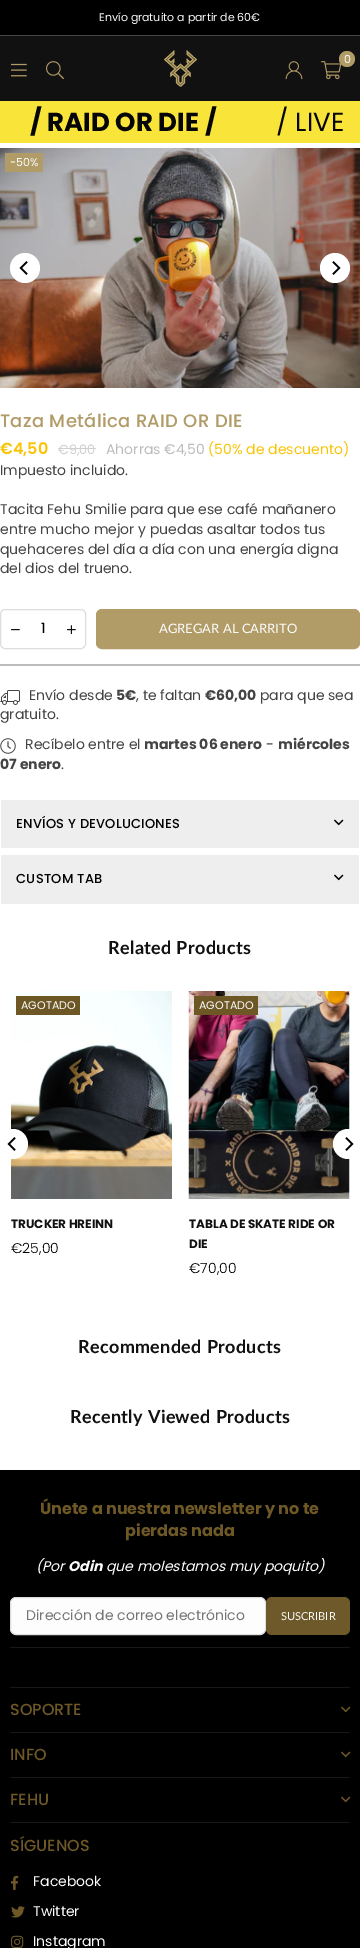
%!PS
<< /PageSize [360 1948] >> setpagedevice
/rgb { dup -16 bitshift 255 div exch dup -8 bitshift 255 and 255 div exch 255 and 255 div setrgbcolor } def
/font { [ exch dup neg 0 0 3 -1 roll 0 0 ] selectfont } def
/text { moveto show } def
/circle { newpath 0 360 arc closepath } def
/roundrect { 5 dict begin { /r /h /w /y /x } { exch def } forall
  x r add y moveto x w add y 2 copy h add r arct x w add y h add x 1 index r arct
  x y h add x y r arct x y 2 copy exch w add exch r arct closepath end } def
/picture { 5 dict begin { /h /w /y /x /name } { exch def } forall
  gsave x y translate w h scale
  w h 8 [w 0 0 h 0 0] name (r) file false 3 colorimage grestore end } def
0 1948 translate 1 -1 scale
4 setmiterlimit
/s1 { /Poppins-Regular 11 font 16#FDFDFD rgb } def
/s2 { /Poppins-Bold 26 font 16#060606 rgb } def
/s3 { /Poppins-Regular 26 font 16#060606 rgb } def
/s4 { /Poppins-SemiBold 16 font 16#F9C405 rgb } def
/s5 { /Poppins-Regular 13 font 16#D0D0D0 rgb } def
/s6 { /Poppins-Regular 14 font 16#BCBCBC rgb } def
/s7 { /Poppins-Regular 14 font 16#F9C405 rgb } def
/s8 { /Poppins-Regular 14 font 16#444444 rgb } def
/s9 { /Poppins-Regular 14 font 16#000000 rgb } def
/s10 { /Lato-Regular 13 font 16#FDFDFD rgb } def
/s11 { /Poppins-Bold 14 font 16#444444 rgb } def
/s12 { /Poppins-Bold 12 font 16#111111 rgb } def
/s13 { /Poppins-Light 14 font 16#000000 rgb } def
/s14 { /Poppins-Bold 16 font 16#6D5826 rgb } def
/s15 { /Poppins-Italic 14 font 16#FDFDFD rgb } def
/s16 { /Poppins-BoldItalic 14 font 16#FDFDFD rgb } def
/s17 { /Poppins-Regular 14 font 16#757575 rgb } def
/s18 { /Lato-Regular 11 font 16#FDFDFD rgb } def
/s19 { /Poppins-Medium 16 font 16#6D5826 rgb } def
/s20 { /Poppins-Regular 14 font 16#FDFDFD rgb } def
16#FFFFFF rgb
0 0 360 1948 rectfill
16#000000 rgb
0 0 360 35 rectfill
16#444444 rgb
0 35 360 1 rectfill
s1
(Envío gratuito a partir de 60€) 99 21 text
16#111111 rgb
0 36 360 65 rectfill
(pic1.raw) 163 50 35 37 picture
(pic2.raw) 321 61 21 19 picture
16#B19B66 rgb
347 59 8 circle fill
s1
(0) 344 63 text
(pic3.raw) 285 61 18 19 picture
(pic4.raw) 11 63 16 14 picture
(pic5.raw) 46 61 18 19 picture
16#F9E53A rgb
0 101 360 42 rectfill
s2
(/ RAID OR DIE /) 30 131 text
s3
(/ LIVE) 276 131 text
(pic6.raw) 0 148 360 240 picture
16#FFFFFF rgb
25 268 15 circle fill
(pic7.raw) 19 261 9 14 picture
335 268 15 circle fill
(pic8.raw) 332 261 9 14 picture
16#B19B66 rgb
5 153 38 19 rectfill
s1
(-50%) 10 166 text
/Poppins-Medium 18 font
16#B19B66 rgb
0 427 moveto 0.35 0 (Taza Metálica RAID OR DIE) ashow
s4
(€4,50) 0 454 text
s5
(€9,00) 58 454 text
58 448 38 1 rectfill
s6
(Ahorras €4,50) 106 454 text
s7
(\(50% de descuento\)) 208 454 text
s8
(Impuesto incluido.) 0 475 text
(Tacita Fehu Smilie para que ese café mañanero) 0 514 text
(entre mucho mejor y puedas asaltar todos tus) 0 534 text
(quehaceres del día a día con una energía digna) 0 554 text
(del dios del trueno.) 0 573 text
16#DDDDDD rgb
0.5 609.5 85 39 4.5 roundrect stroke
(pic9.raw) 11 629 9 2 picture
s9
(1) 41 633 text
(pic10.raw) 67 625 9 9 picture
16#B19B66 rgb
96.5 609.5 263 39 5.5 roundrect gsave fill grestore
stroke
s10
(AGREGAR AL CARRITO) 159 633 text
16#BCBCBC rgb
0 664 360 2 rectfill
(pic11.raw) 0 690 20 15 picture
s8
(Envío desde) 29 700 text
s11
(5€) 116 700 text
s8
(, te faltan) 136 700 text
s11
(€60,00) 205 700 text
s8
(para que sea) 260 700 text
(gratuito.) 0 719 text
(pic12.raw) 0 738 16 16 picture
(Recíbelo entre el) 25 749 text
s11
(martes 06 enero) 144 749 text
s8
(-) 266 749 text
s11
(miércoles) 278 749 text
(07 enero) 0 769 text
s8
(.) 61 769 text
16#EEEEEE rgb
1 800 358 48 rectfill
/Poppins-Medium 13 font
16#000000 rgb
16 828 moveto 0.25 0 (ENVÍOS Y DEVOLUCIONES) ashow
(pic13.raw) 334 819 10 7 picture
16#EEEEEE rgb
1 855 358 49 rectfill
16#000000 rgb
16 883 moveto 0.25 0 (CUSTOM TAB) ashow
(pic13.raw) 334 874 10 7 picture
/Lato-Bold 18 font
16#111111 rgb
108 954 moveto 0.35 0 (Related Products) ashow
(pic14.raw) 11 991 161 208 picture
16#6C5725 rgb
16 996 64 19 rectfill
s1
(AGOTADO) 21 1009 text
s12
(TRUCKER HREINN) 11 1228 text
s13
(€25,00) 11 1253 text
(pic15.raw) 188 991 162 208 picture
16#6C5725 rgb
194 996 64 19 rectfill
s1
(AGOTADO) 199 1009 text
s12
(TABLA DE SKATE RIDE OR) 189 1228 text
(DIE) 189 1248 text
s13
(€70,00) 189 1273 text
16#FFFFFF rgb
13 1144 15 circle fill
(pic7.raw) 7 1137 9 14 picture
348 1144 15 circle fill
(pic8.raw) 345 1137 9 14 picture
/Lato-Bold 18 font
16#111111 rgb
78 1353 moveto 0.35 0 (Recommended Products) ashow
70 1423 moveto 0.35 0 (Recently Viewed Products) ashow
16#000000 rgb
0 1470 360 478 rectfill
s14
(Únete a nuestra newsletter y no te) 40 1514 text
(pierdas nada) 125 1536 text
s15
(\(Por) 36 1571 text
s16
(Odin) 68 1571 text
s15
(que molestamos muy poquito\)) 106 1571 text
10.5 1597.5 255 37 5.5 roundrect gsave fill grestore
16#DDDDDD rgb
stroke
s17
(Dirección de correo electrónico) 26 1620 text
16#6D592A rgb
266 1597 84 38 6 roundrect fill
s18
(SUSCRIBIR) 281 1620 text
16#191919 rgb
10 1647 340 1 rectfill
10 1687 340 1 rectfill
s19
(SOPORTE) 10 1715 text
(pic16.raw) 341 1706 10 7 picture
16#191919 rgb
10 1732 340 1 rectfill
s19
(INFO) 10 1760 text
(pic16.raw) 341 1751 10 7 picture
16#191919 rgb
10 1777 340 1 rectfill
s19
(FEHU) 10 1805 text
(pic16.raw) 341 1796 10 7 picture
16#191919 rgb
10 1822 340 1 rectfill
s19
(SÍGUENOS) 10 1851 text
(pic17.raw) 11 1875 8 15 picture
s20
(Facebook) 33 1886 text
(pic18.raw) 11 1906 14 12 picture
(Twitter) 33 1916 text
(pic19.raw) 11 1935 13 13 picture
(Instagram) 33 1946 text
showpage
